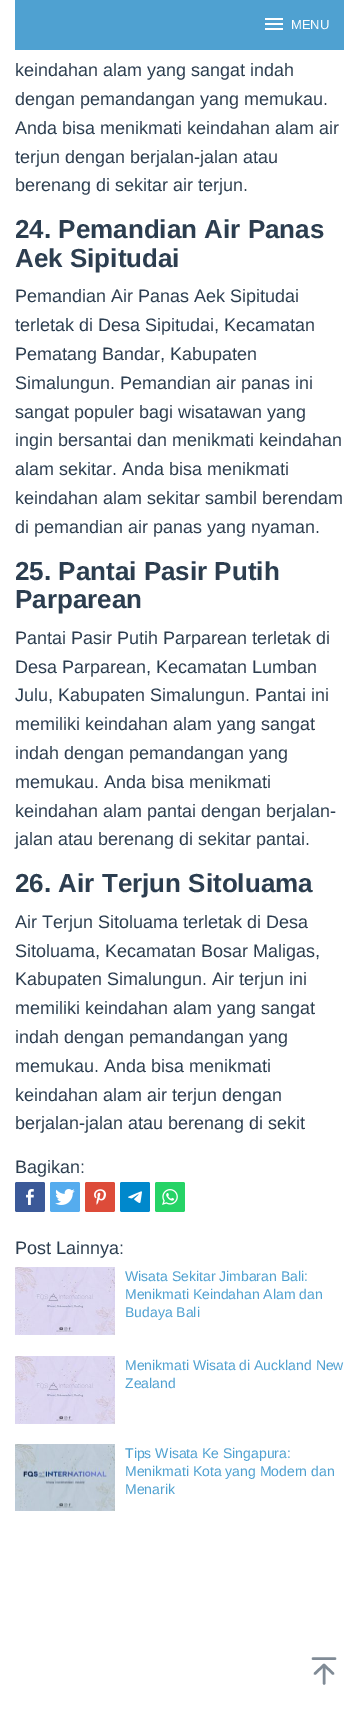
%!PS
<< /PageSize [359 1710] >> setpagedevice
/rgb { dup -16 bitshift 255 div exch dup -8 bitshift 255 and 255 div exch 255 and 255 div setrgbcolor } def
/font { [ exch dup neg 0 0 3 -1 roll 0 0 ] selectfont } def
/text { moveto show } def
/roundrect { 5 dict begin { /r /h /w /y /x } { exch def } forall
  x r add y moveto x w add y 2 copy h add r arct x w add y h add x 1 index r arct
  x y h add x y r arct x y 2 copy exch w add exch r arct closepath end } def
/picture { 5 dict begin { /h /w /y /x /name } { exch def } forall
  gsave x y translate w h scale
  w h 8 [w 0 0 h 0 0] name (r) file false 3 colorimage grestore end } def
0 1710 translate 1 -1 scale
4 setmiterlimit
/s1 { /LiberationSans-Regular 13 font 16#FFFFFF rgb } def
/s2 { /LiberationSans-Regular 18 font 16#2C3E50 rgb } def
/s3 { /LiberationSans-Bold 26 font 16#2C3E50 rgb } def
/s4 { /LiberationSans-Regular 14 font 16#4FA1D1 rgb } def
16#FFFFFF rgb
0 0 359 1710 rectfill
16#4FA1D1 rgb
15 0 329 50 rectfill
(pic1.raw) 265 18 18 12 picture
s1
(MENU) 291 29 text
s2
(keindahan alam yang sangat indah) 15 76 text
(dengan pemandangan yang memukau.) 15 105 text
(Anda bisa menikmati keindahan alam air) 15 134 text
(terjun dengan berjalan-jalan atau) 15 163 text
(berenang di sekitar air terjun.) 15 191 text
s3
(24. Pemandian Air Panas) 15 238 text
(Aek Sipitudai) 15 267 text
s2
(Pemandian Air Panas Aek Sipitudai) 15 302 text
(terletak di Desa Sipitudai, Kecamatan) 15 331 text
(Pematang Bandar, Kabupaten) 15 360 text
(Simalungun. Pemandian air panas ini) 15 389 text
(sangat populer bagi wisatawan yang) 15 418 text
(ingin bersantai dan menikmati keindahan) 15 446 text
(alam sekitar. Anda bisa menikmati) 15 475 text
(keindahan alam sekitar sambil berendam) 15 504 text
(di pemandian air panas yang nyaman.) 15 533 text
s3
(25. Pantai Pasir Putih) 15 580 text
(Parparean) 15 608 text
s2
(Pantai Pasir Putih Parparean terletak di) 15 644 text
(Desa Parparean, Kecamatan Lumban) 15 673 text
(Julu, Kabupaten Simalungun. Pantai ini) 15 701 text
(memiliki keindahan alam yang sangat) 15 730 text
(indah dengan pemandangan yang) 15 759 text
(memukau. Anda bisa menikmati) 15 788 text
(keindahan alam pantai dengan berjalan-) 15 817 text
(jalan atau berenang di sekitar pantai.) 15 845 text
s3
(26. Air Terjun Sitoluama) 15 892 text
s2
(Air Terjun Sitoluama terletak di Desa) 15 928 text
(Sitoluama, Kecamatan Bosar Maligas,) 15 957 text
(Kabupaten Simalungun. Air terjun ini) 15 985 text
(memiliki keindahan alam yang sangat) 15 1014 text
(indah dengan pemandangan yang) 15 1043 text
(memukau. Anda bisa menikmati) 15 1072 text
(keindahan alam air terjun dengan) 15 1101 text
(berjalan-jalan atau berenang di sekit) 15 1129 text
(Bagikan:) 15 1173 text
16#3B5998 rgb
15 1182 30 30 2 roundrect fill
(pic2.raw) 26 1189 8 16 picture
16#55ACEE rgb
50 1182 30 30 2 roundrect fill
(pic3.raw) 55 1189 20 16 picture
16#DD4B39 rgb
85 1182 30 30 2 roundrect fill
(pic4.raw) 94 1189 12 16 picture
16#0088CC rgb
120 1182 30 30 2 roundrect fill
(pic5.raw) 128 1191 14 12 picture
16#25D366 rgb
155 1182 30 30 2 roundrect fill
(pic6.raw) 162 1189 16 16 picture
s2
(Post Lainnya:) 15 1254 text
(pic7.raw) 15 1267 100 68 picture
s4
(Wisata Sekitar Jimbaran Bali:) 125 1281 text
(Menikmati Keindahan Alam dan) 125 1299 text
(Budaya Bali) 125 1317 text
(pic7.raw) 15 1356 100 68 picture
(Menikmati Wisata di Auckland New) 125 1370 text
(Zealand) 125 1388 text
(pic8.raw) 15 1444 100 67 picture
(Tips Wisata Ke Singapura:) 125 1458 text
(Menikmati Kota yang Modern dan) 125 1476 text
(Menarik) 125 1494 text
16#808B96 rgb
2.5 setlinewidth
1 setlinecap
1 setlinejoin
324 1683.5 moveto 324 1665 lineto 315 1673.5 moveto 324 1665 lineto 333 1673.5 lineto 313 1658.5 moveto 335 1658.5 lineto stroke
showpage
